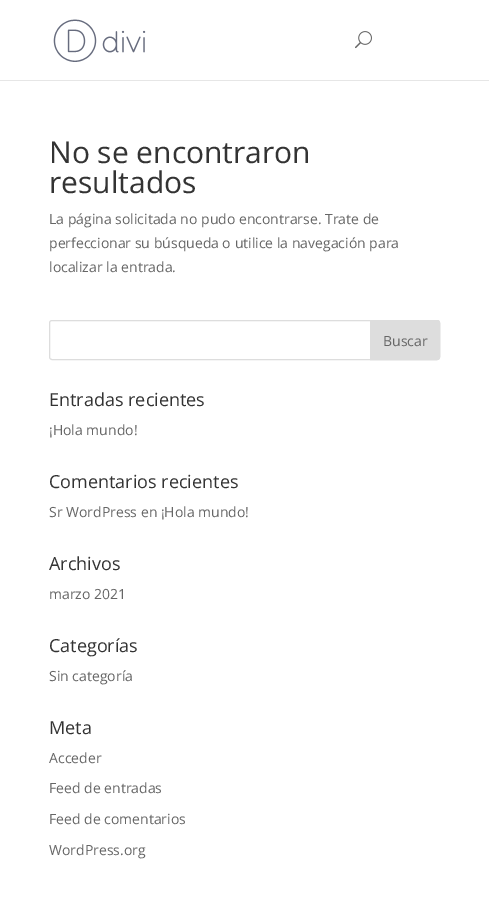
%!PS
<< /PageSize [489 897] >> setpagedevice
/rgb { dup -16 bitshift 255 div exch dup -8 bitshift 255 and 255 div exch 255 and 255 div setrgbcolor } def
/font { [ exch dup neg 0 0 3 -1 roll 0 0 ] selectfont } def
/text { moveto show } def
/roundrect { 5 dict begin { /r /h /w /y /x } { exch def } forall
  x r add y moveto x w add y 2 copy h add r arct x w add y h add x 1 index r arct
  x y h add x y r arct x y 2 copy exch w add exch r arct closepath end } def
/picture { 5 dict begin { /h /w /y /x /name } { exch def } forall
  gsave x y translate w h scale
  w h 8 [w 0 0 h 0 0] name (r) file false 3 colorimage grestore end } def
0 897 translate 1 -1 scale
4 setmiterlimit
/s1 { /OpenSans-Regular 30 font 16#333333 rgb } def
/s2 { /OpenSans-Regular 14 font 16#666666 rgb } def
/s3 { /OpenSans-Regular 18 font 16#333333 rgb } def
16#FFFFFF rgb
0 0 489 897 rectfill
16#E6E6E6 rgb
0 80 489 1 rectfill
(pic1.raw) 53 19 93 43 picture
(pic2.raw) 355 31 17 18 picture
s1
(No se encontraron) 49 163 text
(resultados) 49 193 text
s2
(La página solicitada no pudo encontrarse. Trate de) 49 224 text
(perfeccionar su búsqueda o utilice la navegación para) 49 248 text
(localizar la entrada.) 49 272 text
16#DDDDDD rgb
49.5 320.5 390 39 2.5 roundrect stroke
370.5 320.5 moveto 437 320.5 lineto 438.5 320.5 439.5 321.5 439.5 323 curveto 439.5 357 lineto 439.5 358.5 438.5 359.5 437 359.5 curveto 370.5 359.5 lineto closepath gsave fill grestore
stroke
s2
(Buscar) 383 346 text
s3
(Entradas recientes) 49 406 text
s2
(¡Hola mundo!) 49 435 text
s3
(Comentarios recientes) 49 488 text
s2
(Sr WordPress en ¡Hola mundo!) 49 517 text
s3
(Archivos) 49 570 text
s2
(marzo 2021) 49 599 text
s3
(Categorías) 49 652 text
s2
(Sin categoría) 49 681 text
s3
(Meta) 49 734 text
s2
(Acceder) 49 763 text
(Feed de entradas) 49 793 text
(Feed de comentarios) 49 824 text
(WordPress.org) 49 855 text
showpage
